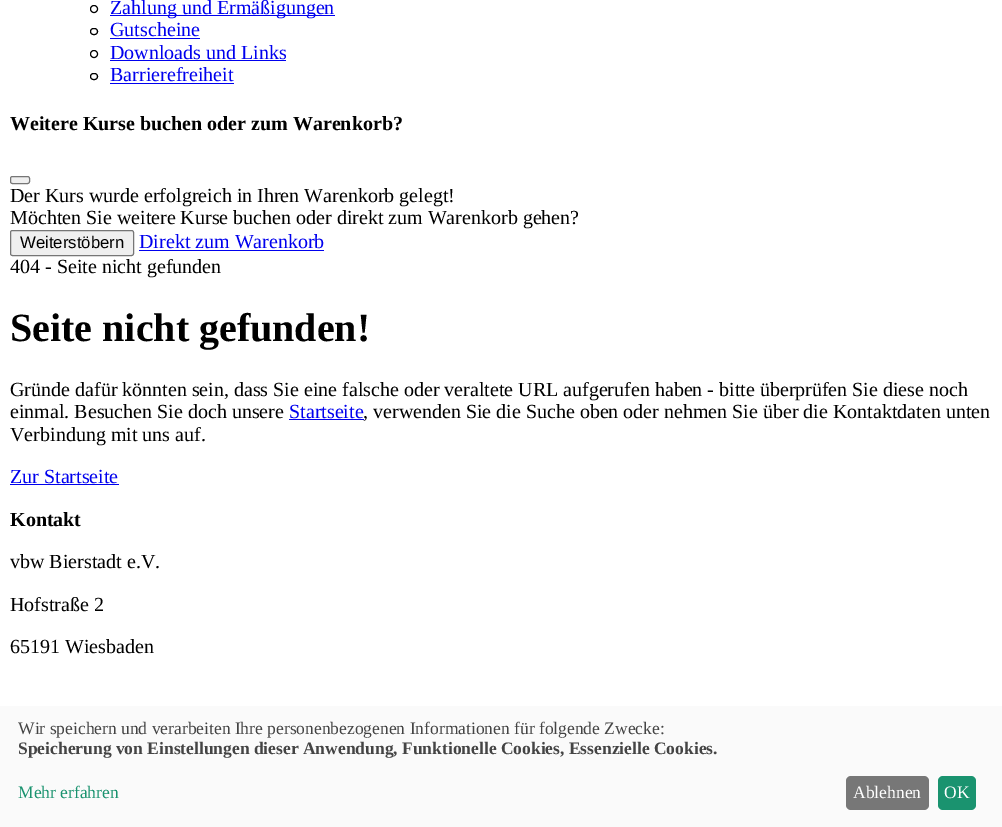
%!PS
<< /PageSize [1002 827] >> setpagedevice
/rgb { dup -16 bitshift 255 div exch dup -8 bitshift 255 and 255 div exch 255 and 255 div setrgbcolor } def
/font { [ exch dup neg 0 0 3 -1 roll 0 0 ] selectfont } def
/text { moveto show } def
/circle { newpath 0 360 arc closepath } def
/roundrect { 5 dict begin { /r /h /w /y /x } { exch def } forall
  x r add y moveto x w add y 2 copy h add r arct x w add y h add x 1 index r arct
  x y h add x y r arct x y 2 copy exch w add exch r arct closepath end } def
0 827 translate 1 -1 scale
4 setmiterlimit
/s1 { /LiberationSerif-Regular 20 font 16#0000EE rgb } def
/s2 { /LiberationSerif-Bold 20 font 16#000000 rgb } def
/s3 { /LiberationSerif-Regular 20 font 16#000000 rgb } def
/s4 { /LiberationSans-Regular 16.75 font 16#000000 rgb } def
/s5 { /LiberationSerif-Bold 40 font 16#000000 rgb } def
/s6 { /LiberationSerif-Regular 17.5 font 16#444444 rgb } def
/s7 { /LiberationSerif-Bold 17.5 font 16#444444 rgb } def
/s8 { /LiberationSerif-Regular 17.5 font 16#1A936F rgb } def
/s9 { /LiberationSerif-Regular 17.5 font 16#FFFFFF rgb } def
16#FFFFFF rgb
0 0 1002 827 rectfill
16#000000 rgb
94 9 3.5 circle stroke
16#0000EE rgb
110 15 225 1 rectfill
s1
(Zahlung und Ermäßigungen) 110 14 text
16#000000 rgb
90.5 28.5 7 6 3 roundrect stroke
s1
(Gutscheine) 110 36 text
110 38 90 1 rectfill
16#000000 rgb
94 54 3.5 circle stroke
s1
(Downloads und Links) 110 59 text
110 60 176 1 rectfill
16#000000 rgb
90.5 73.5 7 6 3 roundrect stroke
s1
(Barrierefreiheit) 110 81 text
110 83 124 1 rectfill
s2
(Weitere Kurse buchen oder zum Warenkorb?) 10 130 text
16#EFEFEF rgb
10.5 176.5 19 7 2 roundrect gsave fill grestore
16#767676 rgb
stroke
s3
(Der Kurs wurde erfolgreich in Ihren Warenkorb gelegt!) 10 202 text
(Möchten Sie weitere Kurse buchen oder direkt zum Warenkorb gehen?) 10 224 text
16#EFEFEF rgb
10.5 230.5 123 25 2 roundrect gsave fill grestore
16#767676 rgb
stroke
s4
(Weiterstöbern) 20 248 text
s1
(Direkt zum Warenkorb) 139 248 text
139 250 185 1 rectfill
s3
(404 - Seite nicht gefunden) 10 273 text
s5
(Seite nicht gefunden!) 10 341 text
s3
(Gründe dafür könnten sein, dass Sie eine falsche oder veraltete URL aufgerufen haben - bitte überprüfen Sie diese noch) 10 396 text
(einmal. Besuchen Sie doch unsere) 10 418 text
s1
(Startseite) 289 418 text
289 419 75 1 rectfill
s3
(, verwenden Sie die Suche oben oder nehmen Sie über die Kontaktdaten unten) 363 418 text
(Verbindung mit uns auf.) 10 441 text
s1
(Zur Startseite) 10 483 text
10 484 109 1 rectfill
s2
(Kontakt) 10 526 text
s3
(vbw Bierstadt e.V.) 10 568 text
(Hofstraße 2) 10 611 text
(65191 Wiesbaden) 10 653 text
16#FAFAFA rgb
0 706 1002 121 rectfill
s6
(Wir speichern und verarbeiten Ihre personenbezogenen Informationen für folgende Zwecke:) 18 734 text
s7
(Speicherung von Einstellungen dieser Anwendung, Funktionelle Cookies, Essenzielle Cookies.) 18 754 text
s8
(Mehr erfahren) 18 798 text
16#777777 rgb
846 776 83 34 5 roundrect fill
s9
(Ablehnen) 853 798 text
16#1A936F rgb
938 776 38 34 5 roundrect fill
s9
(OK) 944 798 text
showpage
